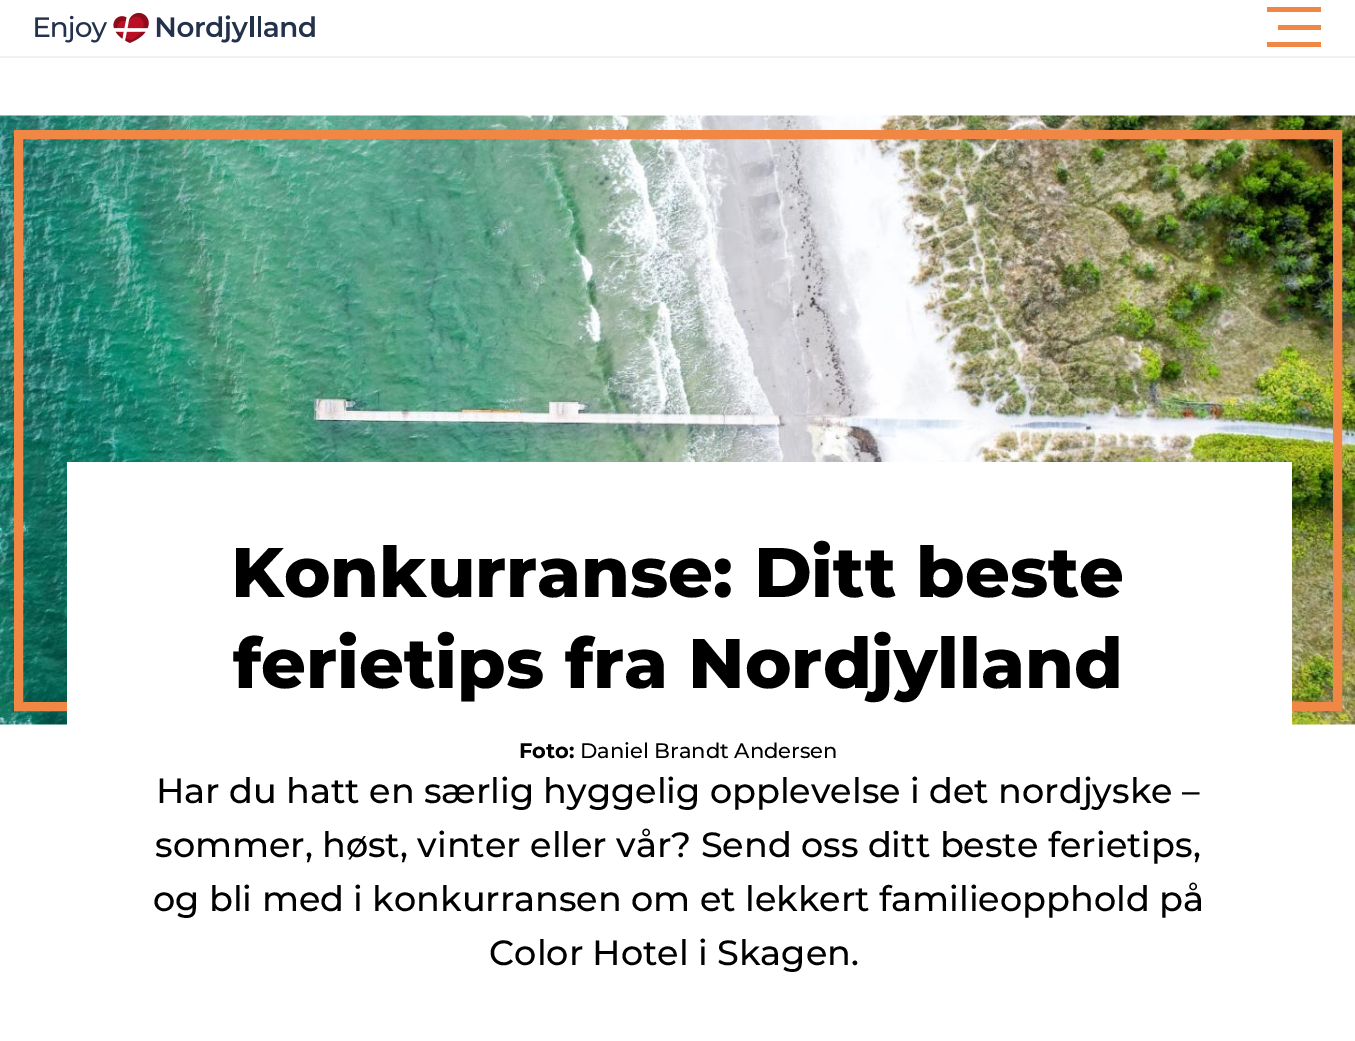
%!PS
<< /PageSize [1355 1041] >> setpagedevice
/rgb { dup -16 bitshift 255 div exch dup -8 bitshift 255 and 255 div exch 255 and 255 div setrgbcolor } def
/font { [ exch dup neg 0 0 3 -1 roll 0 0 ] selectfont } def
/text { moveto show } def
/picture { 5 dict begin { /h /w /y /x /name } { exch def } forall
  gsave x y translate w h scale
  w h 8 [w 0 0 h 0 0] name (r) file false 3 colorimage grestore end } def
0 1041 translate 1 -1 scale
4 setmiterlimit
/s1 { /Montserrat-ExtraBold 70 font 16#000000 rgb } def
/s2 { /Montserrat-Bold 21 font 16#000000 rgb } def
/s3 { /Montserrat-Medium 21 font 16#000000 rgb } def
/s4 { /Montserrat-Medium 35 font 16#000000 rgb } def
16#FFFFFF rgb
0 0 1355 1041 rectfill
16#F0F1F3 rgb
0 56 1355 2 rectfill
(pic1.raw) 35 12 280 31 picture
16#F18744 rgb
1267 7 54 5 rectfill
1278 25 43 5 rectfill
1267 42 54 5 rectfill
(pic2.raw) 0 115 1355 610 picture
9 setlinewidth
18.5 134.5 1319 572 rectstroke
16#FFFFFF rgb
67 462 1225 263 rectfill
s1
(Konkurranse: Ditt beste) 231 597 text
(ferietips fra Nordjylland) 233 688 text
s2
(Foto:) 519 758 text
s3
(Daniel Brandt Andersen) 580 758 text
s4
(Har du hatt en særlig hyggelig opplevelse i det nordjyske –) 156 803 text
(sommer, høst, vinter eller vår? Send oss ditt beste ferietips,) 155 857 text
(og bli med i konkurransen om et lekkert familieopphold på) 153 911 text
(Color Hotel i Skagen.) 489 965 text
showpage
